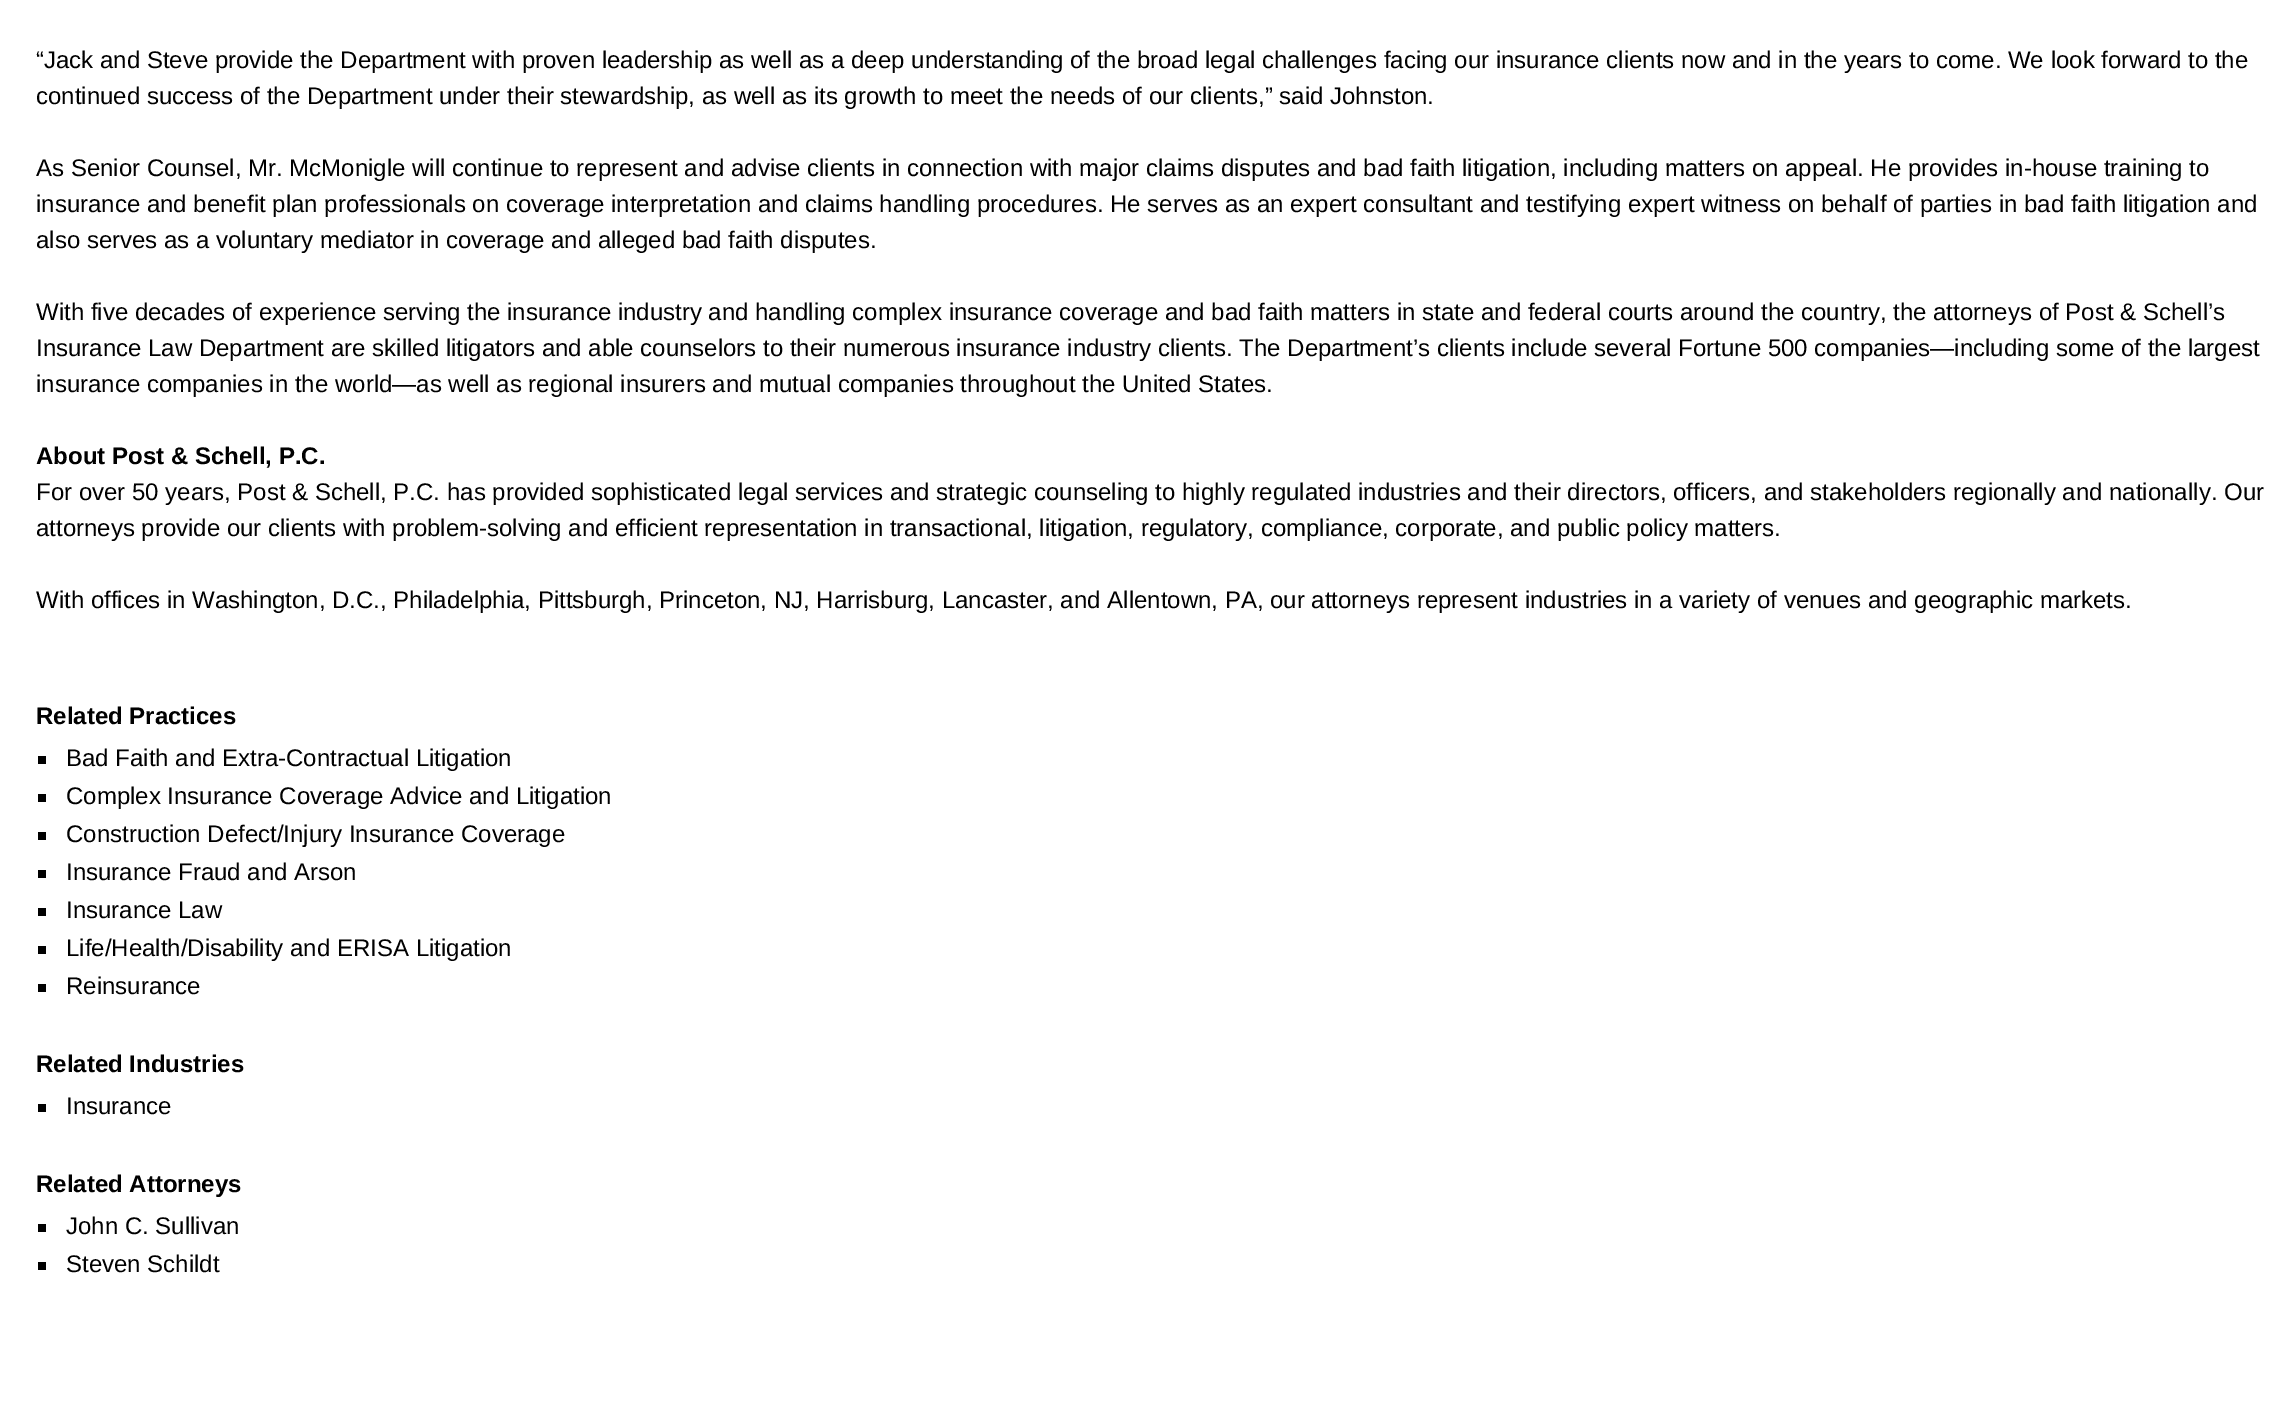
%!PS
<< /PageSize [2290 1403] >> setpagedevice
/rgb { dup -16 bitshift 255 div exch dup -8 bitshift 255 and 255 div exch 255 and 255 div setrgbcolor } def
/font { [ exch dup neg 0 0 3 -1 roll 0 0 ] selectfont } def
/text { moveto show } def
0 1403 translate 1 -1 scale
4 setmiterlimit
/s1 { /LiberationSans-Regular 24 font 16#000000 rgb } def
/s2 { /LiberationSans-Bold 24 font 16#000000 rgb } def
16#FFFFFF rgb
0 0 2290 1403 rectfill
s1
(“Jack and Steve provide the Department with proven leadership as well as a deep understanding of the broad legal challenges facing our insurance clients now and in the years to come. We look forward to the) 36 68 text
(continued success of the Department under their stewardship, as well as its growth to meet the needs of our clients,” said Johnston.) 36 104 text
(As Senior Counsel, Mr. McMonigle will continue to represent and advise clients in connection with major claims disputes and bad faith litigation, including matters on appeal. He provides in-house training to) 36 176 text
(insurance and benefit plan professionals on coverage interpretation and claims handling procedures. He serves as an expert consultant and testifying expert witness on behalf of parties in bad faith litigation and) 36 212 text
(also serves as a voluntary mediator in coverage and alleged bad faith disputes.) 36 248 text
(With five decades of experience serving the insurance industry and handling complex insurance coverage and bad faith matters in state and federal courts around the country, the attorneys of Post & Schell’s) 36 320 text
(Insurance Law Department are skilled litigators and able counselors to their numerous insurance industry clients. The Department’s clients include several Fortune 500 companies—including some of the largest) 36 356 text
(insurance companies in the world—as well as regional insurers and mutual companies throughout the United States.) 36 392 text
s2
(About Post & Schell, P.C.) 36 464 text
s1
(For over 50 years, Post & Schell, P.C. has provided sophisticated legal services and strategic counseling to highly regulated industries and their directors, officers, and stakeholders regionally and nationally. Our) 36 500 text
(attorneys provide our clients with problem-solving and efficient representation in transactional, litigation, regulatory, compliance, corporate, and public policy matters.) 36 536 text
(With offices in Washington, D.C., Philadelphia, Pittsburgh, Princeton, NJ, Harrisburg, Lancaster, and Allentown, PA, our attorneys represent industries in a variety of venues and geographic markets.) 36 608 text
s2
(Related Practices) 36 724 text
38 756 8 8 rectfill
s1
(Bad Faith and Extra-Contractual Litigation) 66 766 text
38 794 8 8 rectfill
(Complex Insurance Coverage Advice and Litigation) 66 804 text
38 832 8 8 rectfill
(Construction Defect/Injury Insurance Coverage) 66 842 text
38 870 8 8 rectfill
(Insurance Fraud and Arson) 66 880 text
38 908 8 8 rectfill
(Insurance Law) 66 918 text
38 946 8 8 rectfill
(Life/Health/Disability and ERISA Litigation) 66 956 text
38 984 8 8 rectfill
(Reinsurance) 66 994 text
s2
(Related Industries) 36 1072 text
38 1104 8 8 rectfill
s1
(Insurance) 66 1114 text
s2
(Related Attorneys) 36 1192 text
38 1224 8 8 rectfill
s1
(John C. Sullivan) 66 1234 text
38 1262 8 8 rectfill
(Steven Schildt) 66 1272 text
showpage
